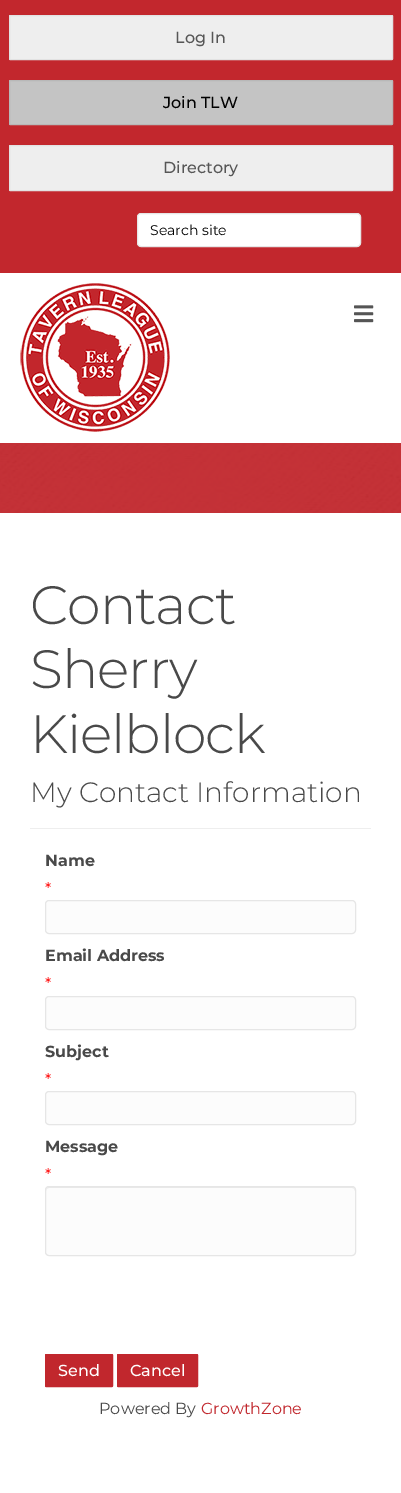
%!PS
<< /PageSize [401 1493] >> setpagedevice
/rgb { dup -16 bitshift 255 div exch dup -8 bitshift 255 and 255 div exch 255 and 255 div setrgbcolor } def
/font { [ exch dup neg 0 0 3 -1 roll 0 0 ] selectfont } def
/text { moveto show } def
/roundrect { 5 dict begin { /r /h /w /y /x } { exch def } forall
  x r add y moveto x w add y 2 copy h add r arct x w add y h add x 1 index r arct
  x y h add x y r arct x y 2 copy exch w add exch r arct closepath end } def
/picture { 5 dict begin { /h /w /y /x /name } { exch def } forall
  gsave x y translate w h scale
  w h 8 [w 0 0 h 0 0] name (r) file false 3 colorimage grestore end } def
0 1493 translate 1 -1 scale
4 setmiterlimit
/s1 { /Montserrat-Medium 16 font 16#565656 rgb } def
/s2 { /Montserrat-Medium 16 font 16#000000 rgb } def
/s3 { /Montserrat-Regular 14 font 16#000000 rgb } def
/s4 { /Montserrat-Light 28 font 16#494949 rgb } def
/s5 { /Montserrat-Bold 16 font 16#494949 rgb } def
/s6 { /Montserrat-Regular 16 font 16#FF0000 rgb } def
/s7 { /Montserrat-Medium 16 font 16#FFFFFF rgb } def
/s8 { /Montserrat-Regular 16 font 16#494949 rgb } def
/s9 { /Montserrat-Regular 16 font 16#C1272D rgb } def
16#FFFFFF rgb
0 0 401 1493 rectfill
16#C2272D rgb
0 0 401 273 rectfill
16#EEEEEE rgb
9.5 15.5 383 44 0.5 roundrect gsave fill grestore
16#E2E2E2 rgb
stroke
s1
(Log In) 175 43 text
16#C4C4C4 rgb
9.5 80.5 383 44 0.5 roundrect gsave fill grestore
16#B8B8B8 rgb
stroke
s2
(Join TLW) 163 108 text
16#EEEEEE rgb
9.5 145.5 383 45 0.5 roundrect gsave fill grestore
16#E2E2E2 rgb
stroke
s1
(Directory) 163 173 text
16#FFFFFF rgb
137.5 213.5 223 33 3.5 roundrect gsave fill grestore
16#E6E6E6 rgb
stroke
s3
(Search site) 150 235 text
(pic1.raw) 20 283 150 149 picture
(pic2.raw) 354 305 20 18 picture
(pic3.raw) 0 443 401 70 picture
/Montserrat-Light 54 font
16#494949 rgb
30 624 moveto -1 0 (Contact) ashow
30 688 moveto -1 0 (Sherry) ashow
30 753 moveto -1 0 (Kielblock) ashow
s4
(My Contact Information) 30 802 text
16#EEEEEE rgb
30 828 341 1 rectfill
s5
(Name) 45 866 text
s6
(*) 45 894 text
16#FCFCFC rgb
45.5 900.5 310 33 3.5 roundrect gsave fill grestore
16#E6E6E6 rgb
stroke
s5
(Email Address) 45 961 text
s6
(*) 45 989 text
16#FCFCFC rgb
45.5 996.5 310 33 3.5 roundrect gsave fill grestore
16#E6E6E6 rgb
stroke
s5
(Subject) 45 1057 text
s6
(*) 45 1085 text
16#FCFCFC rgb
45.5 1091.5 310 33 3.5 roundrect gsave fill grestore
16#E6E6E6 rgb
stroke
s5
(Message) 45 1152 text
s6
(*) 45 1180 text
16#FCFCFC rgb
45 1186 311 70 4 roundrect fill
16#E9E9E9 rgb
49 1188 moveto 352 1188 lineto 354 1188 355 1189 355 1191 curveto 354 1188 lineto 353 1187 lineto 49 1187 lineto 47 1187 46 1189 46 1191 curveto 46 1189 47 1188 49 1188 curveto closepath fill
16#E6E6E6 rgb
45.5 1186.5 310 69 3.5 roundrect stroke
16#C1272D rgb
45.5 1354.5 67 32 0.5 roundrect gsave fill grestore
stroke
s7
(Send) 58 1376 text
16#C1272D rgb
117.5 1354.5 80 32 0.5 roundrect gsave fill grestore
stroke
s7
(Cancel) 130 1376 text
s8
(Powered By) 99 1414 text
s9
(GrowthZone) 201 1414 text
showpage
